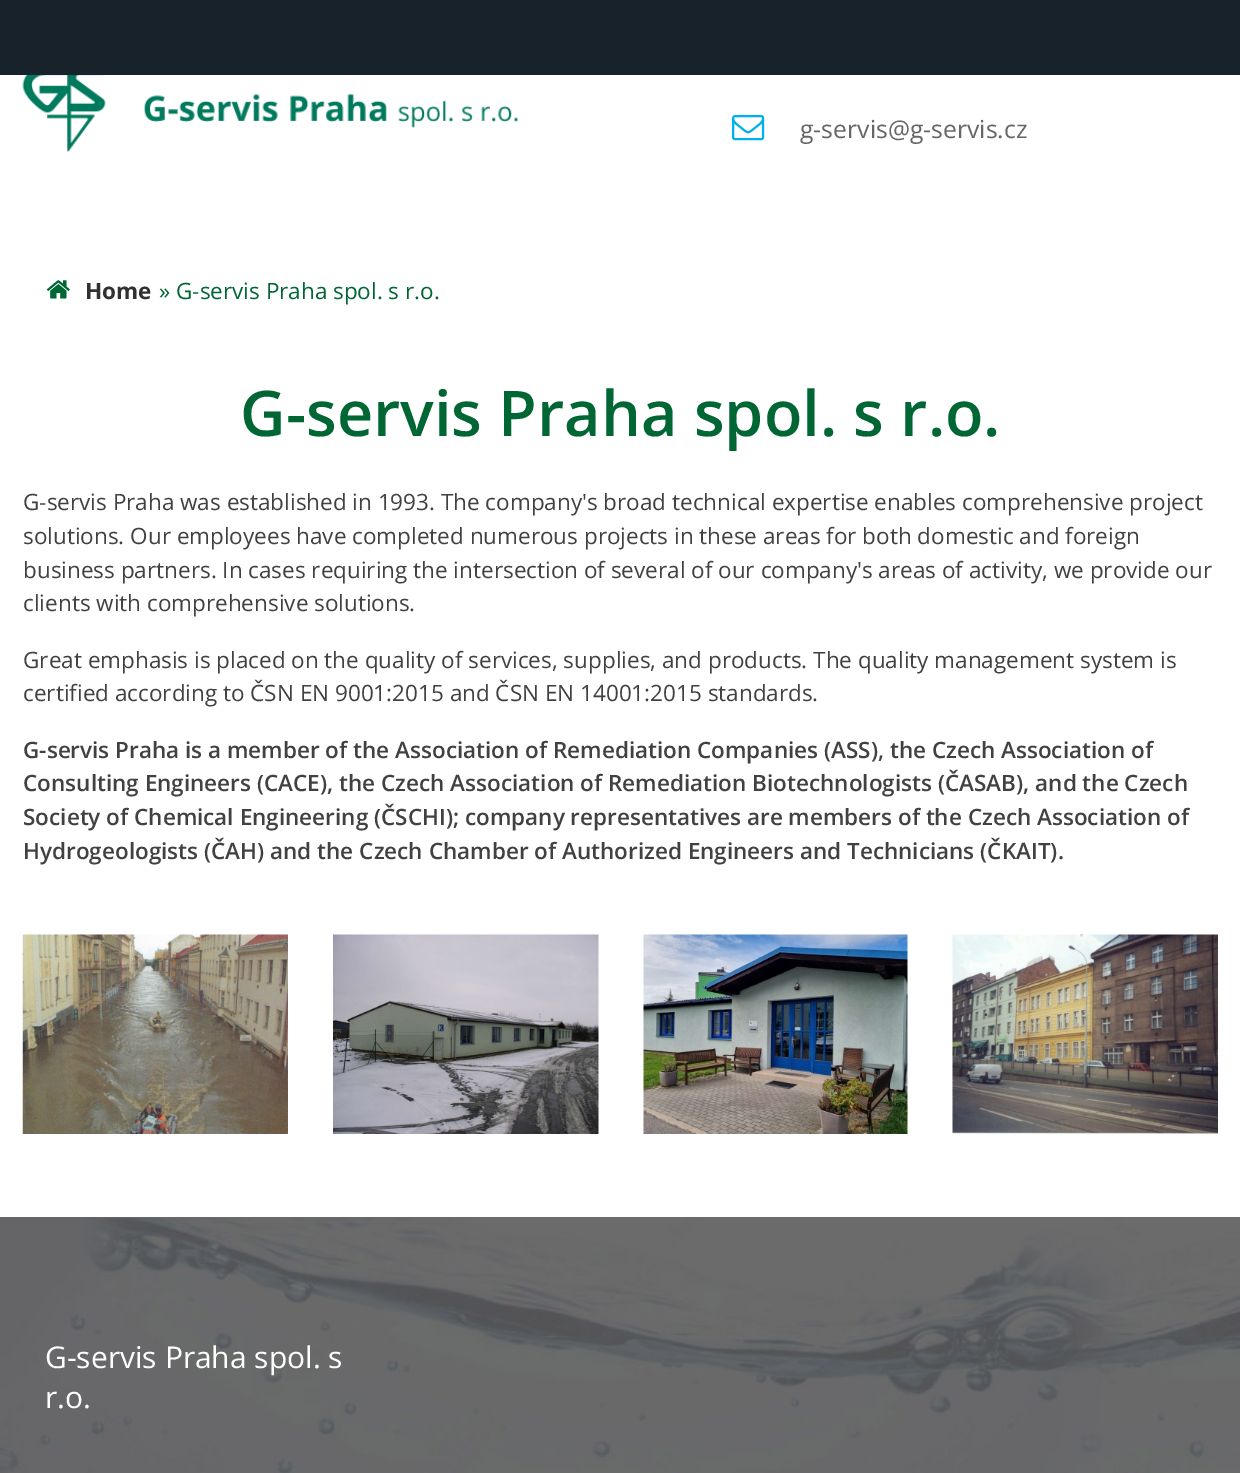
%!PS
<< /PageSize [1240 1473] >> setpagedevice
/rgb { dup -16 bitshift 255 div exch dup -8 bitshift 255 and 255 div exch 255 and 255 div setrgbcolor } def
/font { [ exch dup neg 0 0 3 -1 roll 0 0 ] selectfont } def
/text { moveto show } def
/picture { 5 dict begin { /h /w /y /x /name } { exch def } forall
  gsave x y translate w h scale
  w h 8 [w 0 0 h 0 0] name (r) file false 3 colorimage grestore end } def
0 1473 translate 1 -1 scale
4 setmiterlimit
/s1 { /OpenSans-Regular 24.75 font 16#666666 rgb } def
/s2 { /OpenSans-Bold 22.5 font 16#313131 rgb } def
/s3 { /OpenSans-Regular 22.5 font 16#006633 rgb } def
/s4 { /OpenSans-SemiBold 63 font 16#006633 rgb } def
/s5 { /OpenSans-Regular 22.5 font 16#414141 rgb } def
/s6 { /OpenSans-SemiBold 22.5 font 16#414141 rgb } def
/s7 { /OpenSans-Regular 30 font 16#FFFFFF rgb } def
16#FFFFFF rgb
0 0 1240 1473 rectfill
16#18222B rgb
0 0 1240 75 rectfill
(pic1.raw) 22 75 496 77 picture
(pic2.raw) 732 115 33 26 picture
s1
(g-servis@g-servis.cz) 800 138 text
(pic3.raw) 46 280 24 19 picture
s2
(Home) 85 299 text
s3
(» G-servis Praha spol. s r.o.) 159 299 text
s4
(G-servis Praha spol. s r.o.) 240 436 text
s5
(G-servis Praha was established in 1993. The company's broad technical expertise enables comprehensive project) 23 510 text
(solutions. Our employees have completed numerous projects in these areas for both domestic and foreign) 23 544 text
(business partners. In cases requiring the intersection of several of our company's areas of activity, we provide our) 23 578 text
(clients with comprehensive solutions.) 23 611 text
(Great emphasis is placed on the quality of services, supplies, and products. The quality management system is) 23 668 text
(certified according to ČSN EN 9001:2015 and ČSN EN 14001:2015 standards.) 23 701 text
s6
(G-servis Praha is a member of the Association of Remediation Companies \(ASS\), the Czech Association of) 23 758 text
(Consulting Engineers \(CACE\), the Czech Association of Remediation Biotechnologists \(ČASAB\), and the Czech) 23 791 text
(Society of Chemical Engineering \(ČSCHI\); company representatives are members of the Czech Association of) 23 825 text
(Hydrogeologists \(ČAH\) and the Czech Chamber of Authorized Engineers and Technicians \(ČKAIT\).) 23 859 text
(pic4.raw) 22 934 266 200 picture
(pic5.raw) 333 934 266 200 picture
(pic6.raw) 643 934 265 200 picture
(pic7.raw) 952 934 266 200 picture
(pic8.raw) 0 1217 1240 256 picture
s7
(G-servis Praha spol. s) 45 1368 text
(r.o.) 45 1408 text
showpage
